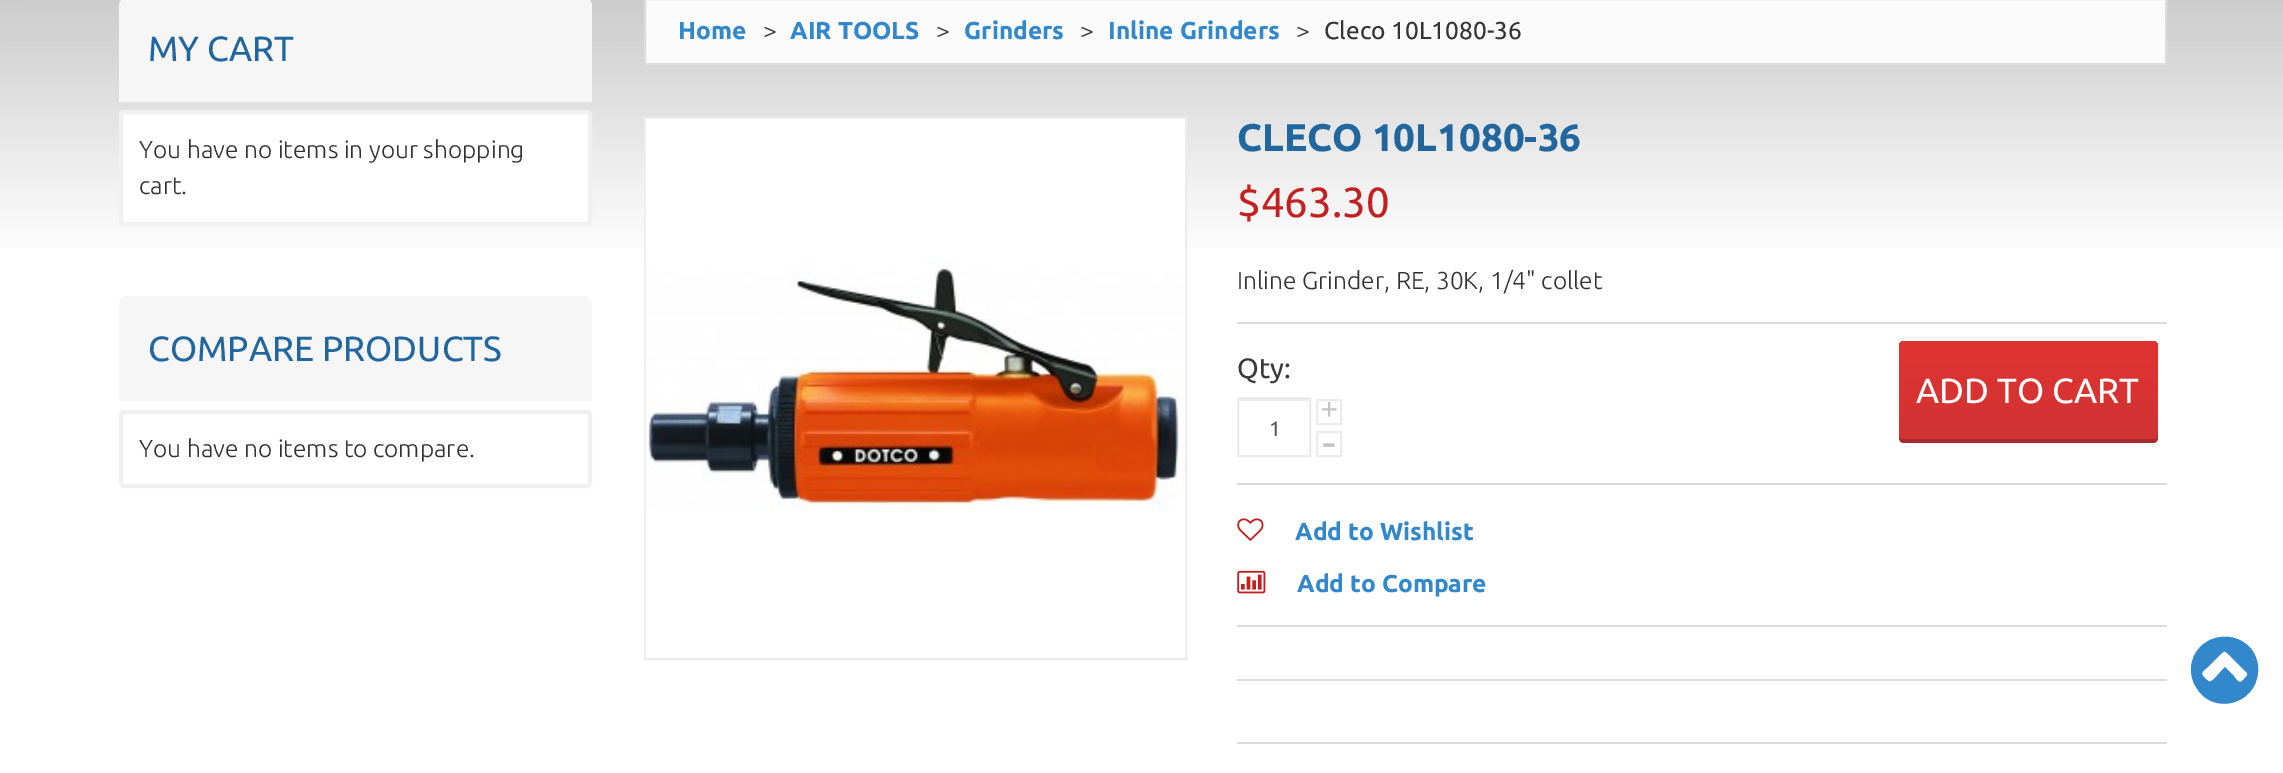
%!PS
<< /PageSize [2283 773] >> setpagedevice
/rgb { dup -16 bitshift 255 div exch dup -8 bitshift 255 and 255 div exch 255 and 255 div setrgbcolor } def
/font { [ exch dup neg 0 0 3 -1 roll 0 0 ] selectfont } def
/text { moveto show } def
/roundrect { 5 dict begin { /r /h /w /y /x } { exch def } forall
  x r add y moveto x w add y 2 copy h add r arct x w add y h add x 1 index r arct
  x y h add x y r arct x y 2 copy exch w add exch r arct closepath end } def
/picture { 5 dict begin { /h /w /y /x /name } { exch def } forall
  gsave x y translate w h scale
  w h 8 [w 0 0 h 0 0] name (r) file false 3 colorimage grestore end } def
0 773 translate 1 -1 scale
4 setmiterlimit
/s1 { /Ubuntu-Regular 35 font 16#21669D rgb } def
/s2 { /Ubuntu-Light 24.5 font 16#333333 rgb } def
/s3 { /Ubuntu-Bold 24.5 font 16#3388CC rgb } def
/s4 { /Ubuntu-Regular 24.5 font 16#333333 rgb } def
/s5 { /Ubuntu-Bold 38.5 font 16#21669D rgb } def
/s6 { /Ubuntu-Regular 42 font 16#C12221 rgb } def
/s7 { /Ubuntu-Regular 28 font 16#3A3A3A rgb } def
/s8 { /Ubuntu-Regular 21 font 16#555555 rgb } def
/s9 { /LiberationSerif-Bold 32 font 16#C5C5C5 rgb } def
/s10 { /LiberationSerif-Bold 42 font 16#C5C5C5 rgb } def
/s11 { /Ubuntu-Regular 35 font 16#FFFFFF rgb } def
16#FFFFFF rgb
0 0 2283 773 rectfill
(pic1.raw) 0 0 2283 248 picture
16#F6F6F6 rgb
128 -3 moveto 583 -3 lineto 588 -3 592 1 592 6 curveto 592 102 lineto 119 102 lineto 119 6 lineto 119 1 123 -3 128 -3 curveto closepath fill
s1
(MY CART) 148 61 text
16#FFFFFF rgb
121 112 469 112 3 roundrect gsave fill grestore
16#F0F0F0 rgb
4 setlinewidth
stroke
s2
(You have no items in your shopping) 139 158 text
(cart.) 139 194 text
16#F6F6F6 rgb
128 296 moveto 583 296 lineto 588 296 592 300 592 305 curveto 592 401 lineto 119 401 lineto 119 305 lineto 119 300 123 296 128 296 curveto closepath fill
s1
(COMPARE PRODUCTS) 148 361 text
16#F0F0F0 rgb
121 412 469 74 3 roundrect stroke
s2
(You have no items to compare.) 139 457 text
16#FBFBFB rgb
645 -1 moveto 2166 -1 lineto 2166 64 lineto 645 64 lineto closepath gsave fill grestore
16#DDDDDD rgb
2 setlinewidth
stroke
s3
(Home) 678 39 text
s2
(>) 763 39 text
s3
(AIR TOOLS) 790 39 text
s2
(>) 936 39 text
s3
(Grinders) 964 39 text
s2
(>) 1080 39 text
s3
(Inline Grinders) 1108 39 text
s2
(>) 1296 39 text
s4
(Cleco 10L1080-36) 1324 39 text
16#ECECEC rgb
645 118 541 541 rectstroke
16#FFFFFF rgb
646 119 539 129 rectfill
(pic2.raw) 645 118 539 539 picture
s5
(CLECO 10L1080-36) 1237 151 text
s6
($463.30) 1237 217 text
s2
(Inline Grinder, RE, 30K, 1/4" collet) 1237 289 text
16#DBDBDB rgb
1237 322 930 2 rectfill
s7
(Qty:) 1237 378 text
16#ECECEC rgb
1239 399 70 2 rectfill
1238 398 72 58 rectstroke
s8
(1) 1269 436 text
16#ECECEC rgb
1317 400 24 24 rectstroke
s9
(+) 1320 420 text
16#ECECEC rgb
1317 432 24 24 rectstroke
s10
(-) 1322 455 text
16#A52A29 rgb
1899 436 moveto 1899 438 lineto 1899 441 1901 443 1904 443 curveto 2153 443 lineto 2156 443 2158 441 2158 438 curveto 2158 348 lineto 2158 434 lineto 2158 437 2155 439 2152 439 curveto 1904 439 lineto 1902 439 1900 438 1899 436 curveto closepath fill
gsave 1899 341 259 98 5 roundrect clip newpath
<< /ShadingType 2 /ColorSpace /DeviceRGB /Coords [2028 341 2028 439] /Extend [true true] /Function << /FunctionType 2 /Domain [0 1] /C0 [0.882 0.2 0.192] /C1 [0.812 0.204 0.2] /N 1 >> >> shfill grestore
s11
(ADD TO CART) 1916 403 text
16#DBDBDB rgb
1237 483 930 2 rectfill
1237 625 930 2 rectfill
(pic3.raw) 1237 518 27 23 picture
s3
(Add to Wishlist) 1295 540 text
(pic4.raw) 1237 570 29 24 picture
(Add to Compare) 1297 592 text
16#DBDBDB rgb
1237 679 930 2 rectfill
1237 742 930 2 rectfill
16#3388CC rgb
2242 681 moveto 2250 673 2249 675 2240 666 curveto 2230 656 lineto 2224 650 2225 650 2219 656 curveto 2209 666 lineto 2205 670 2199 672 2204 677 curveto 2209 682 2209 683 2214 679 curveto 2225 667 lineto 2234 676 lineto 2235 678 2239 684 2242 681 curveto closepath 2254 653 moveto 2257 659 2259 666 2258 672 curveto 2256 705 2212 716 2196 687 curveto 2192 681 2191 675 2191 668 curveto 2193 635 2237 625 2254 653 curveto closepath fill
showpage
